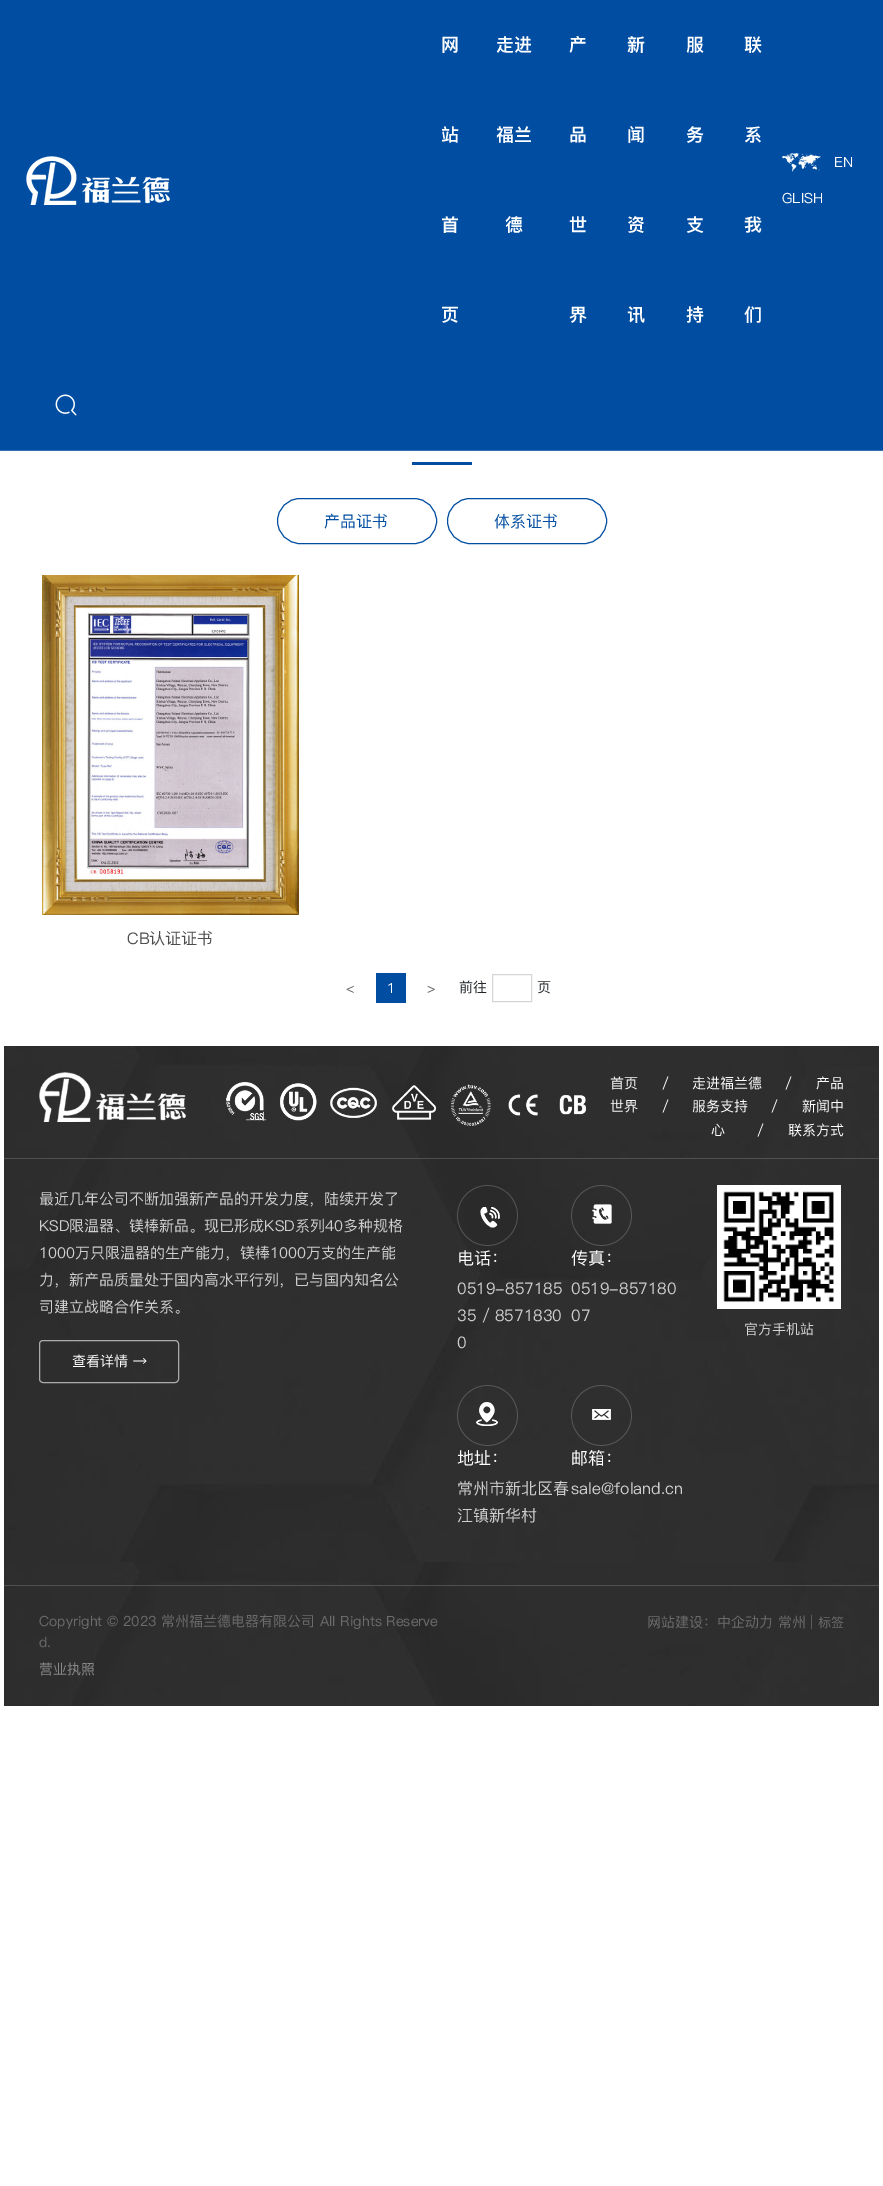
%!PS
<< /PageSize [883 2186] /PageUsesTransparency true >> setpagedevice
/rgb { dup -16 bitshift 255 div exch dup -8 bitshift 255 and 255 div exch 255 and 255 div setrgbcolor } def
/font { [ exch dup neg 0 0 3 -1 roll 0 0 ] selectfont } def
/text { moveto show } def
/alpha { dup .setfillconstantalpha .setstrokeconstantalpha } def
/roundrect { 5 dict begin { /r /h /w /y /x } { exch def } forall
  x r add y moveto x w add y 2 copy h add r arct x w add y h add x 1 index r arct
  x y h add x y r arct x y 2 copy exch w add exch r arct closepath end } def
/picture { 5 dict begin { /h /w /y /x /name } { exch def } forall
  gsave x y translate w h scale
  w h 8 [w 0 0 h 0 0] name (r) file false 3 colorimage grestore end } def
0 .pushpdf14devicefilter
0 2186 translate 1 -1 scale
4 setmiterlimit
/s1 { /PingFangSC-Black 18 font 16#FFFFFF rgb } def
/s2 { /PingFangSC-Medium 14 font 16#FFFFFF rgb } def
/s3 { /PingFangSC-Medium 16 font 16#004DA1 rgb } def
/s4 { /PingFangSC-Medium 16 font 16#4D4D4D rgb } def
/s5 { /PingFangSC-Medium 14 font 16#666666 rgb } def
/s6 { /PingFangSC-Medium 14 font 16#212529 rgb } def
/s7 { /PingFangSC-Medium 15 font 16#CECECE rgb } def
/s8 { /PingFangSC-Medium 17 font 16#FFFFFF rgb } def
/s9 { /PingFangSC-Medium 16 font 16#CECECE rgb } def
/s10 { /PingFangSC-Medium 14 font 16#D5D5D5 rgb } def
/s11 { /PingFangSC-Medium 14 font 16#6C6C6C rgb } def
/s12 { /PingFangSC-Medium 14 font 16#898989 rgb } def
/s13 { /PingFangSC-Medium 13 font 16#6C6C6C rgb } def
16#FFFFFF rgb
0 0 883 2186 rectfill
16#004DA1 rgb
0 0 883 450 rectfill
16#3371B4 rgb
0 450 883 1 rectfill
(pic1.raw) 26 156 144 49 picture
s1
(网) 441 51 text
(站) 441 141 text
(首) 441 231 text
(页) 441 321 text
(走进) 496 51 text
(福兰) 496 141 text
(德) 505 231 text
(产) 569 51 text
(品) 569 141 text
(世) 569 231 text
(界) 569 321 text
(新) 627 51 text
(闻) 627 141 text
(资) 627 231 text
(讯) 627 321 text
(服) 686 51 text
(务) 686 141 text
(支) 686 231 text
(持) 686 321 text
(联) 744 51 text
(系) 744 141 text
(我) 744 231 text
(们) 744 321 text
(pic2.raw) 782 153 39 19 picture
s2
(EN) 834 167 text
(GLISH) 782 203 text
(pic3.raw) 55 394 22 22 picture
16#004DA1 rgb
412 462 60 3 rectfill
277.5 498.5 159 45 22.5 roundrect stroke
s3
(产品证书) 324 527 text
447.5 498.5 159 45 22.5 roundrect stroke
(体系证书) 494 527 text
(pic4.raw) 42 575 257 340 picture
s4
(CB认证证书) 127 944 text
s5
(<) 346 993 text
16#004DA1 rgb
376 973 30 30 rectfill
s2
(1) 387 993 text
s5
(>) 427 993 text
s6
(前往) 459 992 text
16#D5D5D5 rgb
492.5 974.5 39 27 rectstroke
s6
(页) 537 992 text
(pic5.raw) 4 1046 875 660 picture
(pic6.raw) 39 1072 147 50 picture
(pic7.raw) 226 1082 360 44 picture
s2
(首页) 610 1088 text
(/) 662 1088 text
(走进福兰德) 692 1088 text
(/) 785 1088 text
(产品) 816 1088 text
(世界) 610 1111 text
(/) 662 1111 text
(服务支持) 692 1111 text
(/) 771 1111 text
(新闻中) 802 1111 text
(心) 711 1135 text
(/) 757 1135 text
(联系方式) 788 1135 text
0.17 alpha
4 1158 875 1 rectfill
1 alpha
s7
(最近几年公司不断加强新产品的开发力度，陆续开发了) 39 1204 text
(KSD限温器、镁棒新品。现已形成KSD系列40多种规格) 39 1231 text
(1000万只限温器的生产能力，镁棒1000万支的生产能) 39 1258 text
(力，新产品质量处于国内高水平行列，已与国内知名公) 39 1285 text
(司建立战略合作关系。) 39 1312 text
0.6 alpha
16#FFFFFF rgb
39.5 1340.5 139 42 3.5 roundrect stroke
1 alpha
s2
(查看详情 →) 72 1366 text
(pic8.raw) 457 1185 61 61 picture
s8
(电话：) 457 1264 text
s9
(0519-857185) 457 1294 text
(35 / 8571830) 457 1321 text
(0) 457 1348 text
(pic9.raw) 571 1185 61 61 picture
s8
(传真：) 571 1264 text
s9
(0519-857180) 571 1294 text
(07) 571 1321 text
(pic10.raw) 457 1385 61 61 picture
s8
(地址：) 457 1464 text
s9
(常州市新北区春) 457 1494 text
(江镇新华村) 457 1521 text
(pic11.raw) 571 1385 61 61 picture
s8
(邮箱：) 571 1464 text
s9
(sale@foland.cn) 571 1494 text
16#FFFFFF rgb
717 1185 124 124 rectfill
(pic12.raw) 723 1191 111 111 picture
s10
(官方手机站) 744 1334 text
0.17 alpha
16#FFFFFF rgb
4 1585 875 1 rectfill
1 alpha
s11
(Copyright © 2023) 39 1626 text
(常州福兰德电器有限公司) 161 1626 text
(All Rights Reserve) 320 1626 text
(d.) 39 1647 text
s12
(营业执照) 39 1674 text
s11
(网站建设：中企动力 常州 |) 647 1627 text
s13
(标签) 818 1627 text
.poppdf14devicefilter showpage
